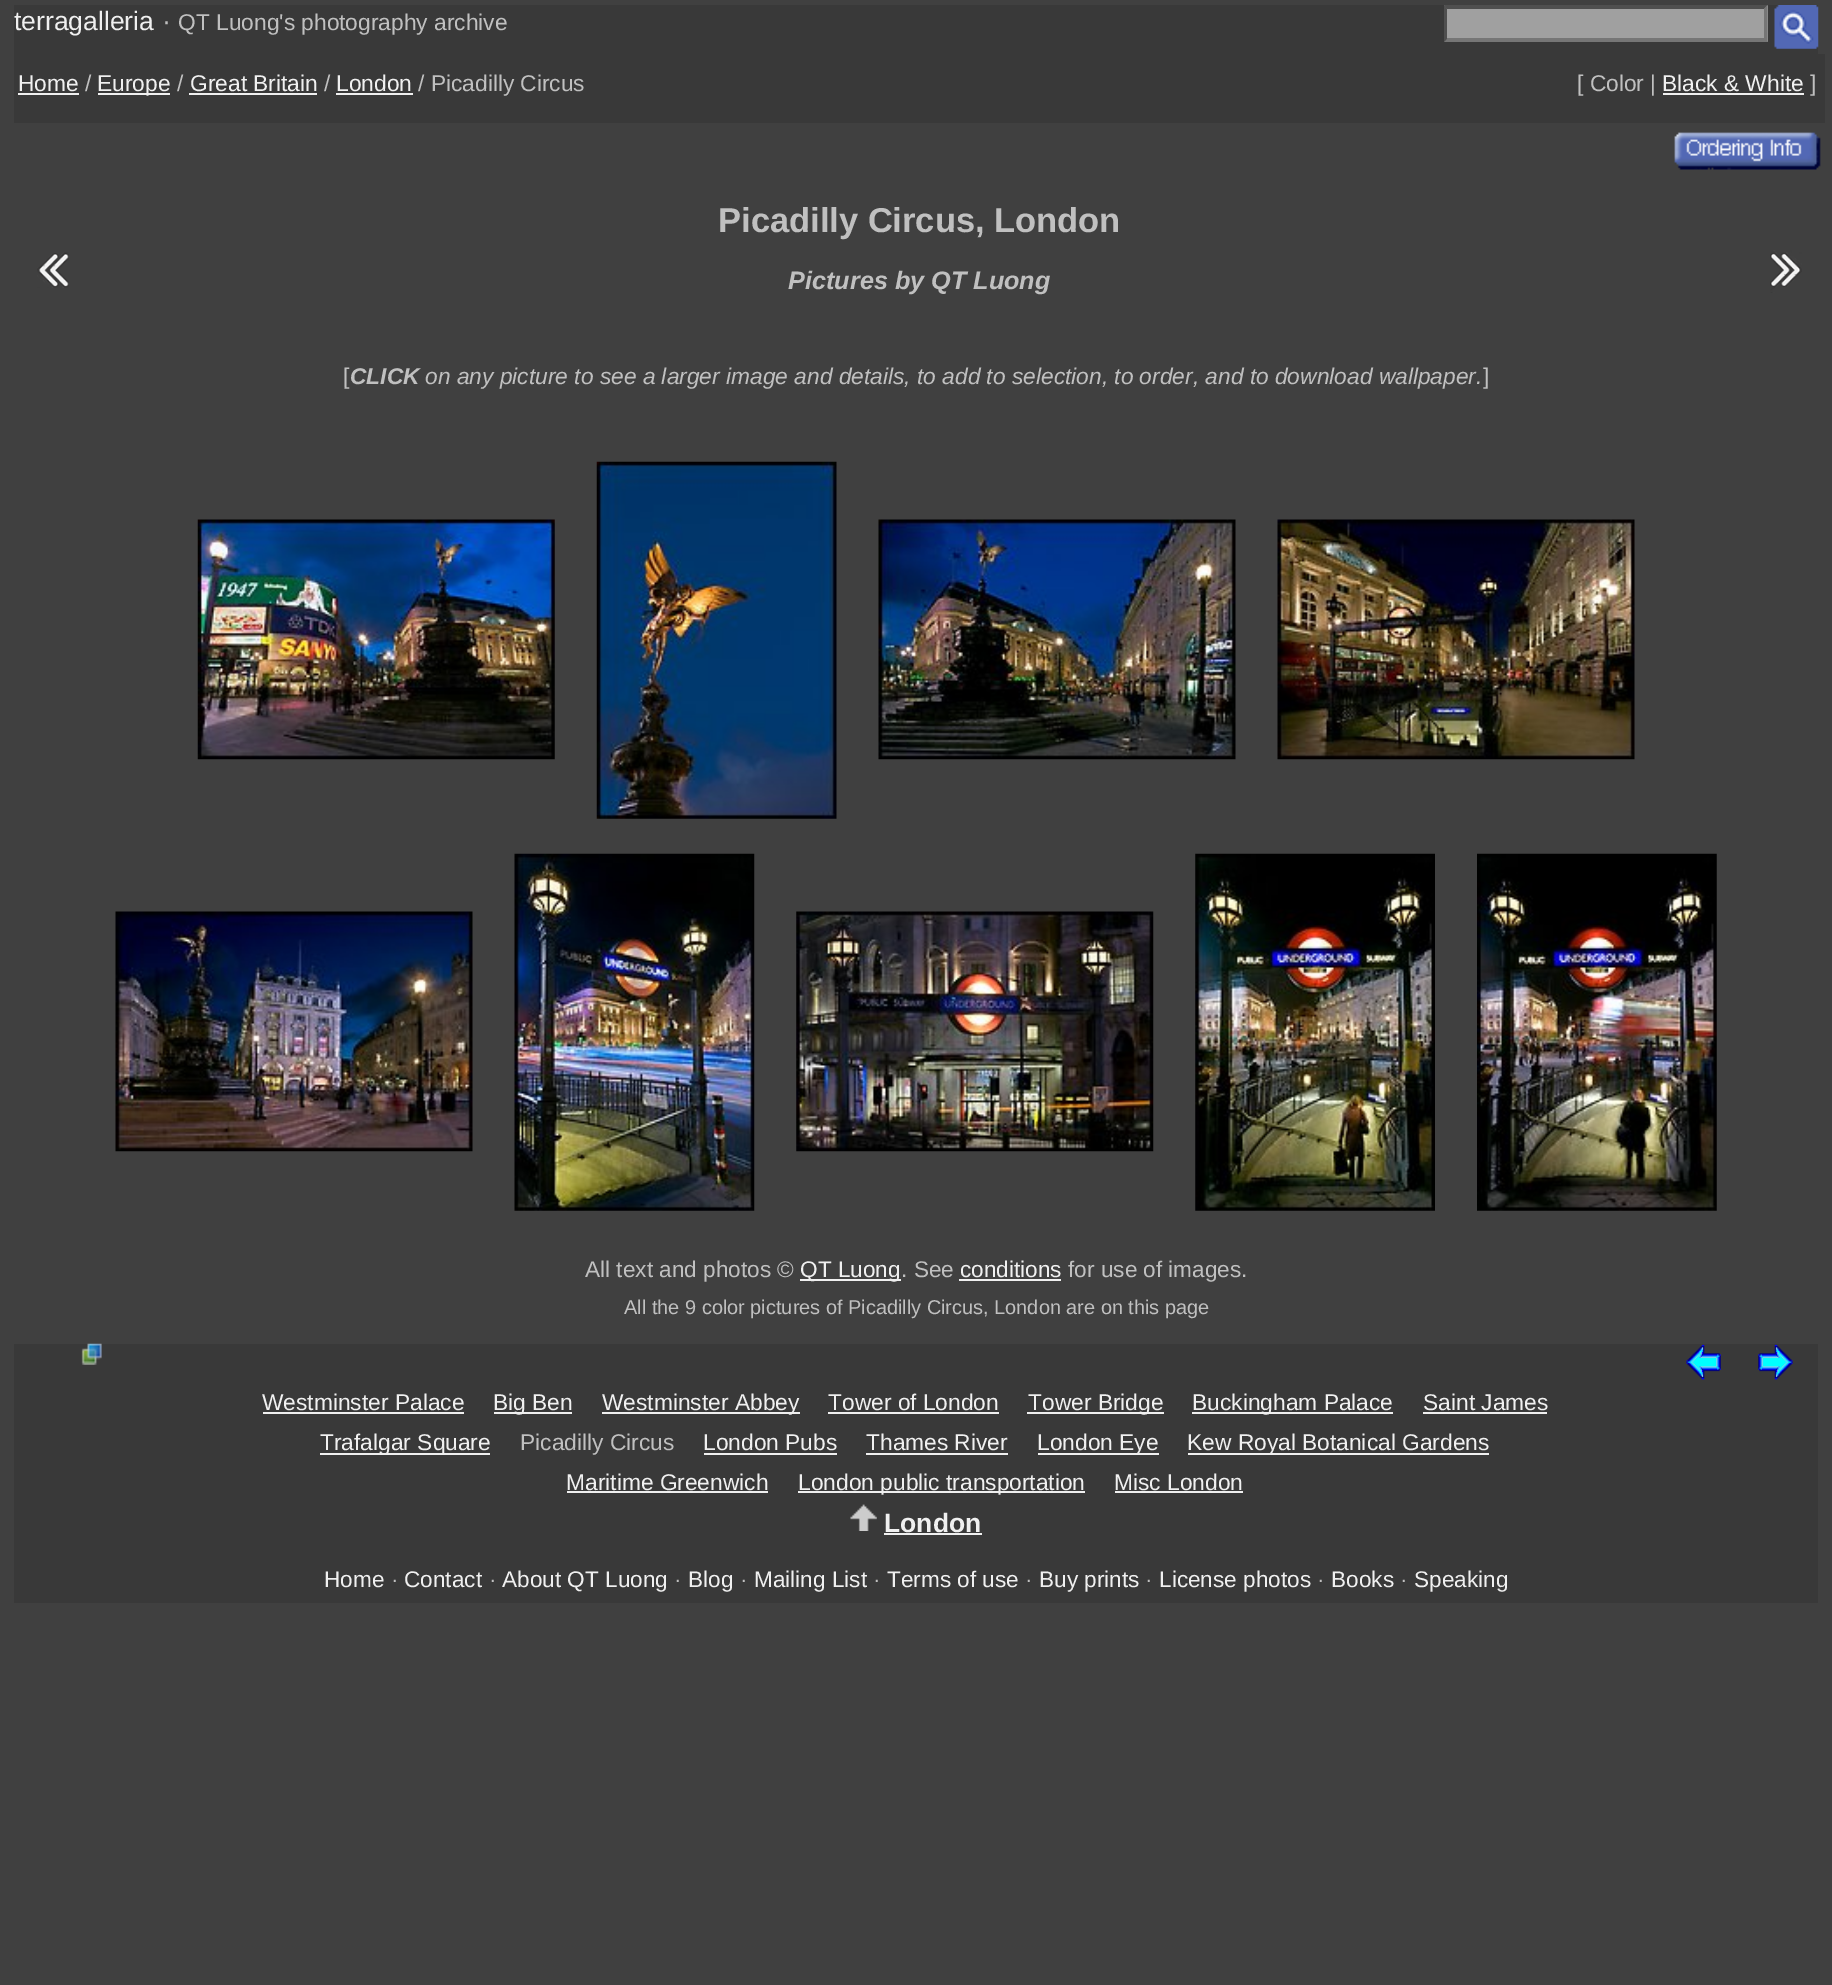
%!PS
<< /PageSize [1832 1985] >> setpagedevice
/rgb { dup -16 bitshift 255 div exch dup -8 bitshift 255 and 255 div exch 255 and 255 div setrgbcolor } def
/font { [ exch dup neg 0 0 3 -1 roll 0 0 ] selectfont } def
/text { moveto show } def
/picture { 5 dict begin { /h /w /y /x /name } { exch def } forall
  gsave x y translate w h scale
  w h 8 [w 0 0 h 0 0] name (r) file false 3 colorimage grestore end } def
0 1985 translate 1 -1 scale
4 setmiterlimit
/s1 { /LiberationSans-Regular 26.5 font 16#F0F0F0 rgb } def
/s2 { /LiberationSans-Regular 26.5 font 16#C0C0C0 rgb } def
/s3 { /LiberationSans-Regular 22.75 font 16#C0C0C0 rgb } def
/s4 { /LiberationSans-Regular 22.75 font 16#F0F0F0 rgb } def
/s5 { /LiberationSans-Bold 34.5 font 16#C0C0C0 rgb } def
/s6 { /LiberationSans-BoldItalic 25.25 font 16#C0C0C0 rgb } def
/s7 { /LiberationSans-BoldItalic 22.75 font 16#C0C0C0 rgb } def
/s8 { /LiberationSans-Italic 22.75 font 16#C0C0C0 rgb } def
/s9 { /LiberationSans-Regular 22.6 font 16#C0C0C0 rgb } def
/s10 { /LiberationSans-Regular 22.6 font 16#F0F0F0 rgb } def
/s11 { /LiberationSans-Regular 19.95 font 16#C0C0C0 rgb } def
/s12 { /LiberationSans-Bold 26.5 font 16#F0F0F0 rgb } def
16#404040 rgb
0 0 1832 1985 rectfill
16#393939 rgb
14 5 1804 49 rectfill
s1
(terragalleria) 14 30 text
s2
(·) 162 30 text
s3
(QT Luong's photography archive) 178 30 text
16#A0A0A0 rgb
1444 5 324 37 rectfill
16#4F4F4F rgb
1444 5 moveto 1768 5 lineto 1764 9 lineto 1447 9 lineto closepath fill
16#767676 rgb
1767.5 5 moveto 1767.5 42 lineto 1764 38.5 lineto 1764 9 lineto closepath fill
1768 42 moveto 1444 42 lineto 1447 38 lineto 1764 38 lineto closepath fill
16#4F4F4F rgb
1444 42 moveto 1444 5 lineto 1447 9 lineto 1447 38.5 lineto closepath fill
(pic1.raw) 1774 5 45 44 picture
16#393939 rgb
14 54 1811 69 rectfill
s4
(Home) 18 91 text
18 93 61 2 rectfill
s3
(/) 85 91 text
16#F0F0F0 rgb
98 93 72 2 rectfill
(Europe) 97 91 text
s3
(/) 177 91 text
s4
(Great Britain) 190 91 text
189 93 128 2 rectfill
s3
(/) 324 91 text
s4
(London) 336 91 text
336 93 77 2 rectfill
s3
(/ Picadilly Circus) 418 91 text
([ Color |) 1577 91 text
s4
(Black & White) 1662 91 text
1663 93 141 2 rectfill
s3
(]) 1810 91 text
(pic2.raw) 1674 132 147 38 picture
(pic3.raw) 37 252 32 36 picture
s5
(Picadilly Circus, London) 718 232 text
s6
(Pictures by QT Luong) 788 289 text
(pic4.raw) 1770 250 32 43 picture
s3
([) 343 384 text
s7
(CLICK) 350 384 text
s8
(on any picture to see a larger image and details, to add to selection, to order, and to download wallpaper.) 425 384 text
s3
(]) 1483 384 text
(pic5.raw) 197 519 358 241 picture
(pic6.raw) 596 461 241 358 picture
(pic7.raw) 878 519 358 241 picture
(pic8.raw) 1277 519 358 241 picture
(pic9.raw) 115 911 358 241 picture
(pic10.raw) 514 853 241 358 picture
(pic11.raw) 796 911 358 241 picture
(pic12.raw) 1195 853 240 358 picture
(pic13.raw) 1477 853 240 358 picture
s9
(All text and photos ©) 585 1277 text
16#F0F0F0 rgb
800 1279 101 2 rectfill
(QT Luong) 800 1277 text
s9
(. See) 901 1277 text
s10
(conditions) 960 1277 text
959 1279 102 2 rectfill
s9
(for use of images.) 1068 1277 text
s11
(All the 9 color pictures of Picadilly Circus, London are on this page) 624 1314 text
16#393939 rgb
14 1344 1804 259 rectfill
(pic14.raw) 81 1343 21 22 picture
(pic15.raw) 1686 1344 35 36 picture
(pic16.raw) 1758 1344 35 36 picture
s4
(Westminster Palace) 262 1410 text
263 1412 201 2 rectfill
494 1412 78 2 rectfill
(Big Ben) 493 1410 text
602 1412 198 2 rectfill
(Westminster Abbey) 602 1410 text
(Tower of London) 828 1410 text
828 1412 171 2 rectfill
1027 1412 137 2 rectfill
(Tower Bridge) 1028 1410 text
1192 1412 201 2 rectfill
(Buckingham Palace) 1192 1410 text
(Saint James) 1423 1410 text
1423 1412 124 2 rectfill
320 1453 170 2 rectfill
(Trafalgar Square) 320 1450 text
s3
(Picadilly Circus) 520 1450 text
s4
(London Pubs) 703 1450 text
704 1453 133 2 rectfill
(Thames River) 866 1450 text
866 1453 142 2 rectfill
1038 1453 121 2 rectfill
(London Eye) 1037 1450 text
1188 1453 301 2 rectfill
(Kew Royal Botanical Gardens) 1187 1450 text
(Maritime Greenwich) 566 1490 text
567 1491 201 2 rectfill
798 1491 287 2 rectfill
(London public transportation) 798 1490 text
(Misc London) 1114 1490 text
1115 1491 128 2 rectfill
(pic17.raw) 850 1504 27 27 picture
s12
(London) 884 1532 text
884 1533 98 2 rectfill
s10
(Home) 324 1587 text
s9
(·) 391 1587 text
s10
(Contact) 404 1587 text
s9
(·) 489 1587 text
s10
(About QT Luong) 502 1587 text
s9
(·) 674 1587 text
s10
(Blog) 688 1587 text
s9
(·) 740 1587 text
s10
(Mailing List) 754 1587 text
s9
(·) 873 1587 text
s10
(Terms of use) 887 1587 text
s9
(·) 1025 1587 text
s10
(Buy prints) 1039 1587 text
s9
(·) 1145 1587 text
s10
(License photos) 1159 1587 text
s9
(·) 1317 1587 text
s10
(Books) 1331 1587 text
s9
(·) 1400 1587 text
s10
(Speaking) 1414 1587 text
showpage
